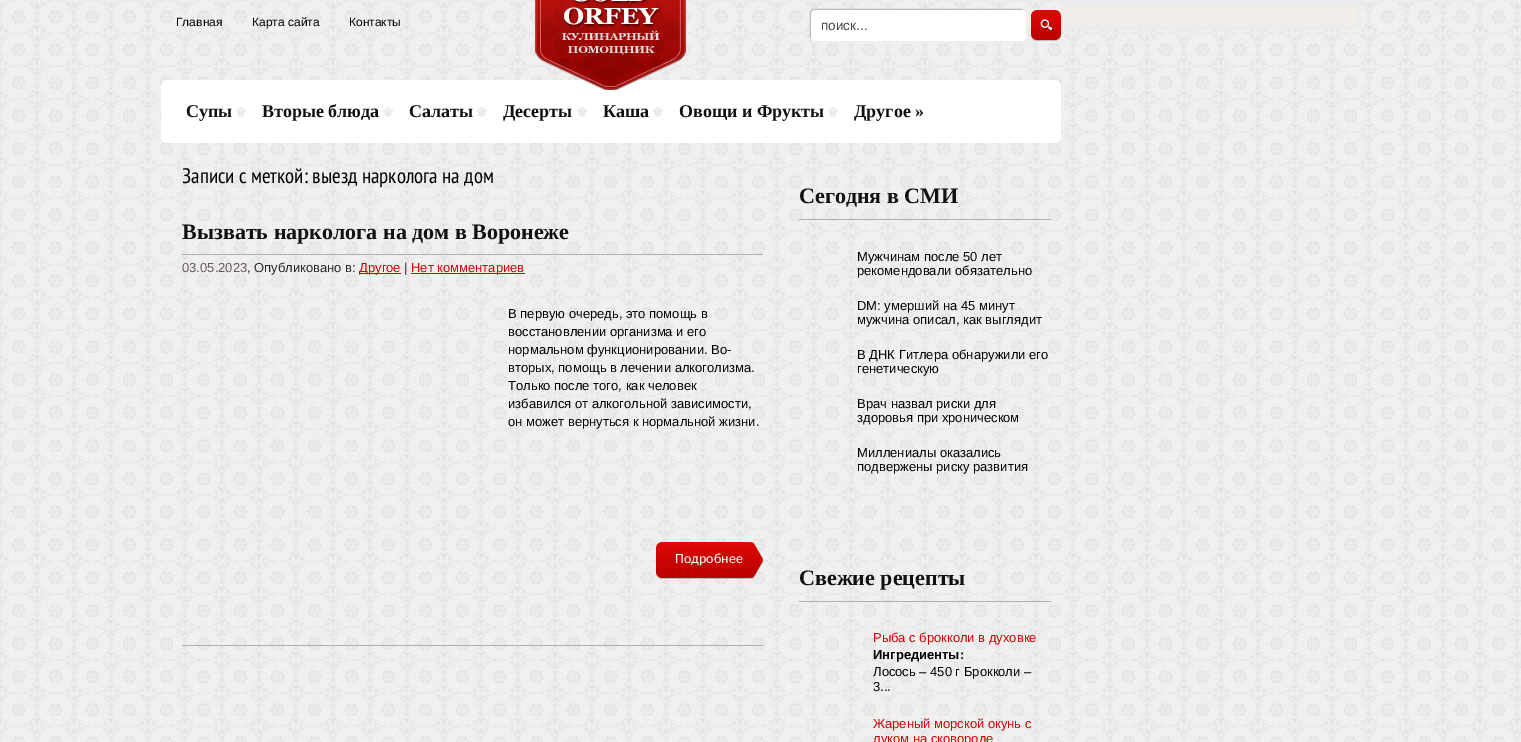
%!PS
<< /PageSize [1521 742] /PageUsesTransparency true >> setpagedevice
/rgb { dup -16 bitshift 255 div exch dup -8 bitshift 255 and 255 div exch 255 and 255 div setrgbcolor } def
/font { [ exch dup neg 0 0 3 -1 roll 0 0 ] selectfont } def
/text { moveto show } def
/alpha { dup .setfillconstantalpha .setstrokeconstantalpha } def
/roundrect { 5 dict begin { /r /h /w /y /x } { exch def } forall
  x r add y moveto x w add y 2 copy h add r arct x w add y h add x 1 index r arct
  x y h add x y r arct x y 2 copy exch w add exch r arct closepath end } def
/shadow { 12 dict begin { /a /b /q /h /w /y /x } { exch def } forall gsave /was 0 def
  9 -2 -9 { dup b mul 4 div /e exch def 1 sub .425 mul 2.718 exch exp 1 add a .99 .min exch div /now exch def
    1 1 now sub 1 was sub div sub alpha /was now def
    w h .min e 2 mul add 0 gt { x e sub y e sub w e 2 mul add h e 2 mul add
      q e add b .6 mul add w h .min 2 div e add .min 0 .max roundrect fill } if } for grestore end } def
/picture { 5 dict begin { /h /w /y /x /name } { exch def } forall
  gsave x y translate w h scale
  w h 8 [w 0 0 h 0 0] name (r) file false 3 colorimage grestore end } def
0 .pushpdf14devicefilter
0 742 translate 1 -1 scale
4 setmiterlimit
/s1 { /LiberationSans-Regular 12 font 16#000000 rgb } def
/s2 { /LiberationSans-Regular 13.5 font 16#464646 rgb } def
/s3 { /LiberationSerif-Bold 18 font 16#111111 rgb } def
/s4 { /PTSansNarrow-Regular 21 font 16#000000 rgb } def
/s5 { /LiberationSerif-Bold 22 font 16#111111 rgb } def
/s6 { /LiberationSans-Regular 13 font 16#655A5A rgb } def
/s7 { /LiberationSans-Regular 13 font 16#252525 rgb } def
/s8 { /LiberationSans-Regular 13 font 16#D20000 rgb } def
/s9 { /LiberationSans-Regular 13 font 16#000000 rgb } def
/s10 { /Carlito-Regular 14 font 16#FFFFFF rgb } def
/s11 { /LiberationSans-Bold 13 font 16#000000 rgb } def
16#FFFFFF rgb
0 0 1521 742 rectfill
(pic1.raw) 0 0 1521 742 picture
s1
(Главная) 176 26 text
(Карта сайта) 252 26 text
(Контакты) 349 26 text
16#FFFFFF rgb
161 80 900 63 7 roundrect fill
(pic2.raw) 535 0 151 90 picture
16#B4B4B4 rgb
810 9 215 31 4 0.5 1 shadow
16#FFFFFF rgb
811 10 215 31 4 roundrect fill
s2
(поиск...) 821 30 text
(pic3.raw) 1031 10 30 31 picture
(pic4.raw) 235 107 12 10 picture
s3
(Супы) 186 117 text
(pic4.raw) 382 107 12 10 picture
(Вторые блюда) 262 117 text
(pic4.raw) 476 107 12 10 picture
(Салаты) 409 117 text
(pic4.raw) 576 107 12 10 picture
(Десерты) 503 117 text
(pic4.raw) 652 107 12 10 picture
(Каша) 603 117 text
(pic4.raw) 827 107 12 10 picture
(Овощи и Фрукты) 679 117 text
(Другое ») 854 117 text
s4
(Записи с меткой: выезд нарколога на дом) 182 183 text
16#B3ACAC rgb
182 254 581 1 rectfill
s5
(Вызвать нарколога на дом в Воронеже) 182 239 text
s6
(03.05.2023) 182 272 text
s7
(, Опубликовано в:) 247 272 text
16#D20000 rgb
359 273 42 1 rectfill
(Другое) 359 272 text
s7
(|) 404 272 text
16#D20000 rgb
411 273 114 1 rectfill
(Нет комментариев) 411 272 text
s9
(В первую очередь, это помощь в) 508 318 text
(восстановлении организма и его) 508 336 text
(нормальном функционировании. Во-) 508 354 text
(вторых, помощь в лечении алкоголизма.) 508 372 text
(Только после того, как человек) 508 390 text
(избавился от алкогольной зависимости,) 508 408 text
(он может вернуться к нормальной жизни.) 508 426 text
(pic5.raw) 656 542 107 37 picture
s10
(Подробнее) 675 563 text
16#B3ACAC rgb
182 645 581 1 rectfill
799 219 252 1 rectfill
s5
(Сегодня в СМИ) 799 203 text
s9
(Мужчинам после 50 лет) 857 261 text
(рекомендовали обязательно) 857 275 text
(DM: умерший на 45 минут) 857 310 text
(мужчина описал, как выглядит) 857 324 text
(В ДНК Гитлера обнаружили его) 857 359 text
(генетическую) 857 373 text
(Врач назвал риски для) 857 408 text
(здоровья при хроническом) 857 422 text
(Миллениалы оказались) 857 457 text
(подвержены риску развития) 857 471 text
16#B3ACAC rgb
799 601 252 1 rectfill
s5
(Свежие рецепты) 799 585 text
s8
(Рыба с брокколи в духовке) 873 642 text
s11
(Ингредиенты:) 873 659 text
s9
(Лосось – 450 г Брокколи –) 873 676 text
(3...) 873 691 text
s8
(Жареный морской окунь с) 873 728 text
(луком на сковороде) 873 743 text
16#F1EEE9 rgb
1061 5 295 20 rectfill
16#ECECEC rgb
1061 0 300 5 rectfill
1356 0 5 30 rectfill
1061 25 300 5 rectfill
.poppdf14devicefilter showpage
